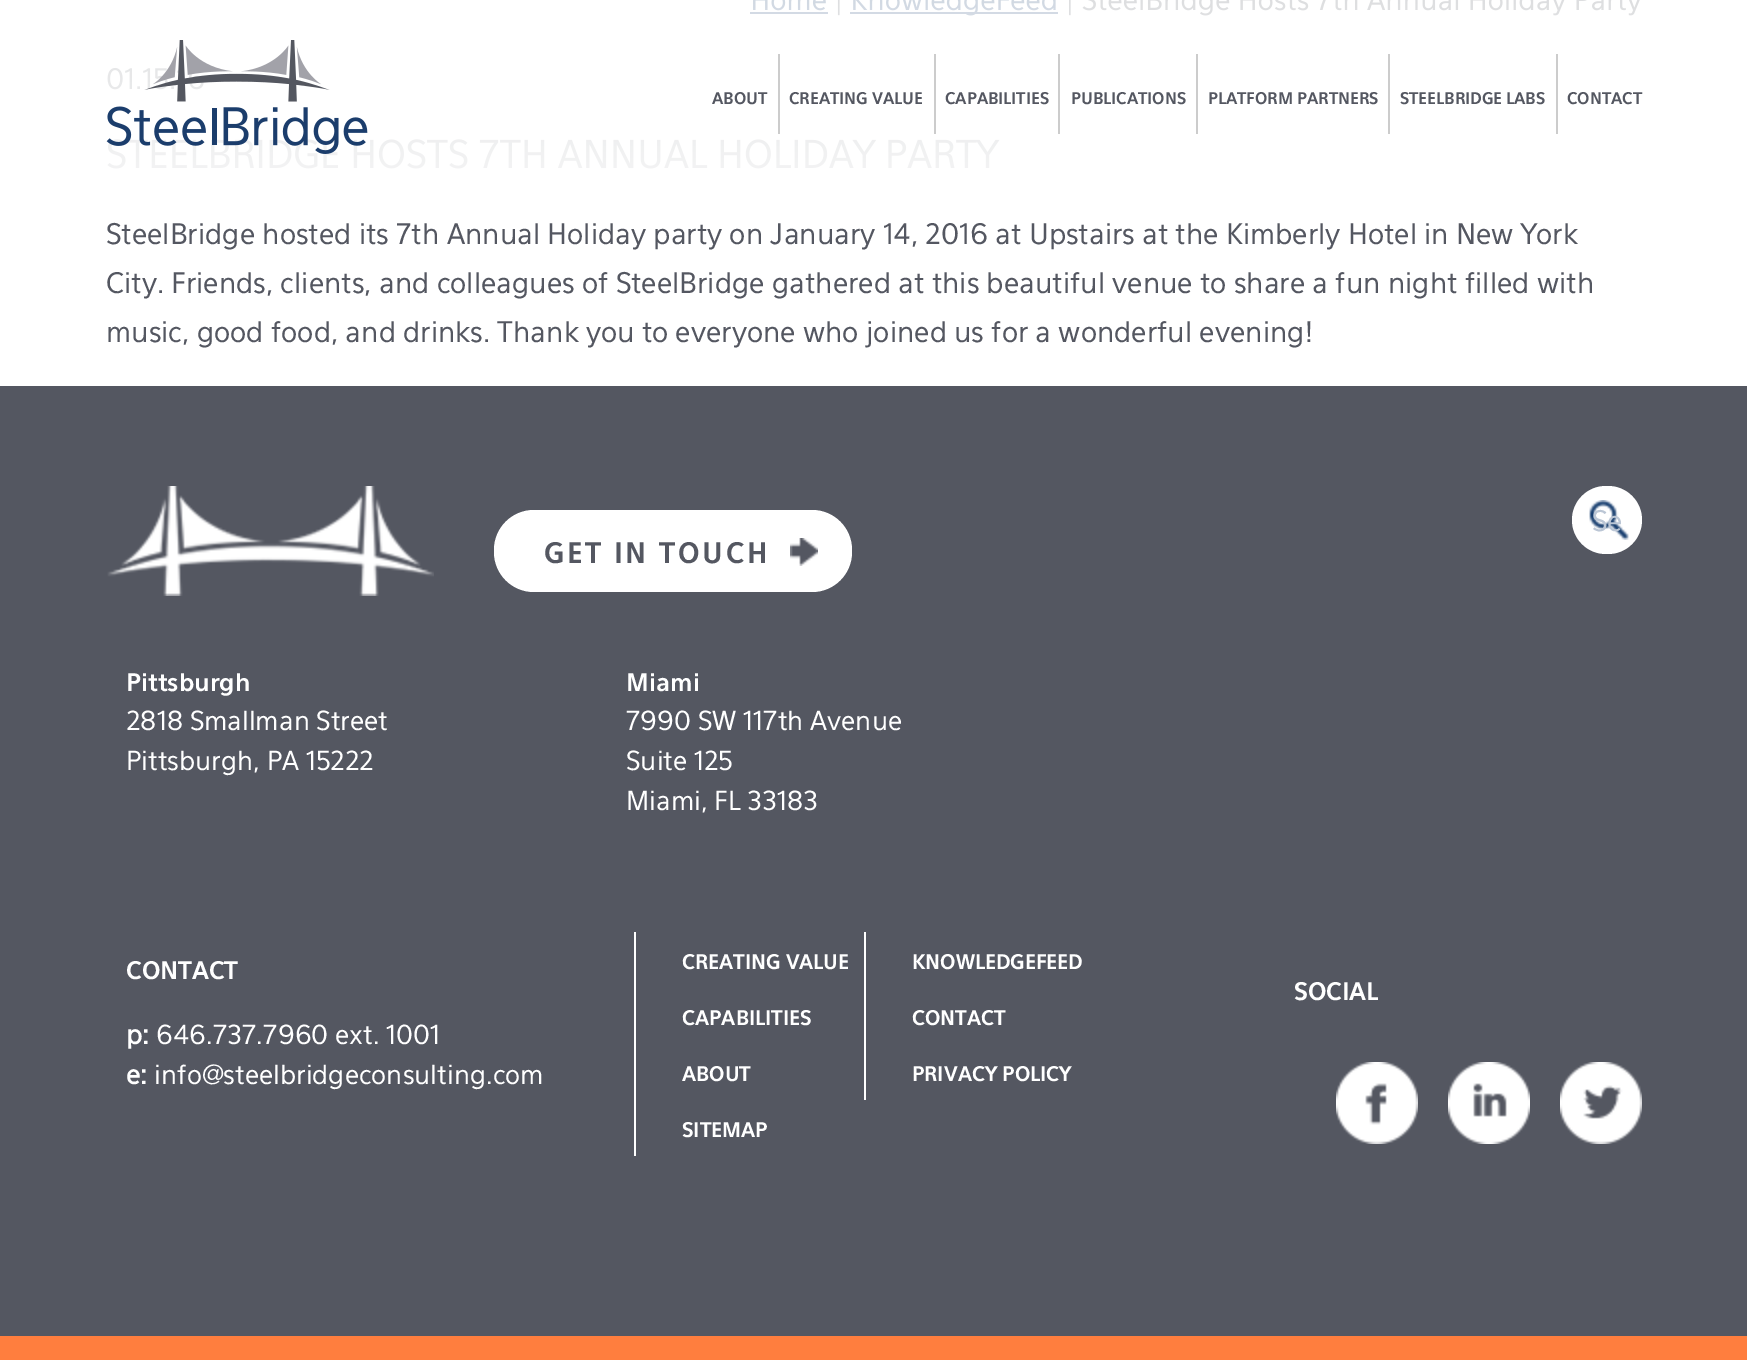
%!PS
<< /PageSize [1747 1360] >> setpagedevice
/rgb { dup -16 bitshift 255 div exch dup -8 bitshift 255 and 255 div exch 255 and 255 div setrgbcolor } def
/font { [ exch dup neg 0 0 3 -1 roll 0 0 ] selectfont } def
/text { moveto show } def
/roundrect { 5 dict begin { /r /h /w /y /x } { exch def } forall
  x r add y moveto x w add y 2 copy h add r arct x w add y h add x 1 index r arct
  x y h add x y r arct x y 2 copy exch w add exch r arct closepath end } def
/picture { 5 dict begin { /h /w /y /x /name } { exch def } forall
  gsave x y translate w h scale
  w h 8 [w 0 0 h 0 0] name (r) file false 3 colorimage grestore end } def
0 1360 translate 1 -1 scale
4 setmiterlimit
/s1 { /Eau-Bold 16 font 16#545761 rgb } def
/s2 { /Eau-Regular 28 font 16#545761 rgb } def
/s3 { /Eau-Regular 28 font 16#BBC6D5 rgb } def
/s4 { /Eau-Bold 24 font 16#FFFFFF rgb } def
/s5 { /Eau-Regular 26 font 16#FFFFFF rgb } def
/s6 { /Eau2-Bold 26 font 16#FFFFFF rgb } def
/s7 { /Eau-Bold 20 font 16#FFFFFF rgb } def
16#FFFFFF rgb
0 0 1747 1360 rectfill
(pic1.raw) 107 0 1533 169 picture
(pic2.raw) 106 40 262 114 picture
s1
(ABOUT) 712 104 text
16#CCCCCC rgb
778 54 2 80 rectfill
s1
(CREATING VALUE) 789 104 text
16#CCCCCC rgb
934 54 2 80 rectfill
s1
(CAPABILITIES) 945 104 text
16#CCCCCC rgb
1058 54 2 80 rectfill
s1
(PUBLICATIONS) 1071 104 text
16#CCCCCC rgb
1196 54 2 80 rectfill
s1
(PLATFORM PARTNERS) 1208 104 text
16#CCCCCC rgb
1388 54 2 80 rectfill
s1
(STEELBRIDGE LABS) 1400 104 text
16#CCCCCC rgb
1556 54 2 80 rectfill
s1
(CONTACT) 1567 104 text
s2
(SteelBridge hosted its 7th Annual Holiday party on January 14, 2016 at Upstairs at the Kimberly Hotel in New York) 106 244 text
(City. Friends, clients, and colleagues of SteelBridge gathered at this beautiful venue to share a fun night filled with) 106 293 text
(music, good food, and drinks. Thank you to everyone who joined us for a wonderful evening!) 106 342 text
0 386 1747 950 rectfill
(pic3.raw) 107 486 327 110 picture
16#FFFFFF rgb
1572 486 70 68 34 roundrect fill
(pic4.raw) 1589 500 40 40 picture
s3
(Se) 1592 531 text
16#FFFFFF rgb
494 510 358 82 40 roundrect fill
/Eau-Bold 28 font
16#545761 rgb
544 563 moveto 2.75 0 (GET IN TOUCH) ashow
(pic5.raw) 790 538 28 28 picture
s4
(Pittsburgh) 126 691 text
s5
(2818 Smallman Street) 126 730 text
(Pittsburgh, PA 15222) 126 770 text
s4
(Miami) 626 691 text
s5
(7990 SW 117th Avenue) 626 730 text
(Suite 125) 626 770 text
(Miami, FL 33183) 626 810 text
s4
(CONTACT) 126 979 text
s6
(p:) 126 1044 text
s5
(646.737.7960 ext. 1001) 156 1044 text
s6
(e:) 126 1084 text
s5
(info@steelbridgeconsulting.com) 154 1084 text
634 932 2 224 rectfill
s7
(CREATING VALUE) 682 969 text
864 932 2 168 rectfill
(KNOWLEDGEFEED) 912 969 text
(CAPABILITIES) 682 1025 text
(CONTACT) 912 1025 text
(ABOUT) 682 1081 text
(PRIVACY POLICY) 912 1081 text
(SITEMAP) 682 1137 text
s4
(SOCIAL) 1294 1000 text
(pic6.raw) 1336 1062 82 82 picture
(pic7.raw) 1448 1062 82 82 picture
(pic8.raw) 1560 1062 82 82 picture
16#FF7E3E rgb
0 1336 1747 24 rectfill
showpage
